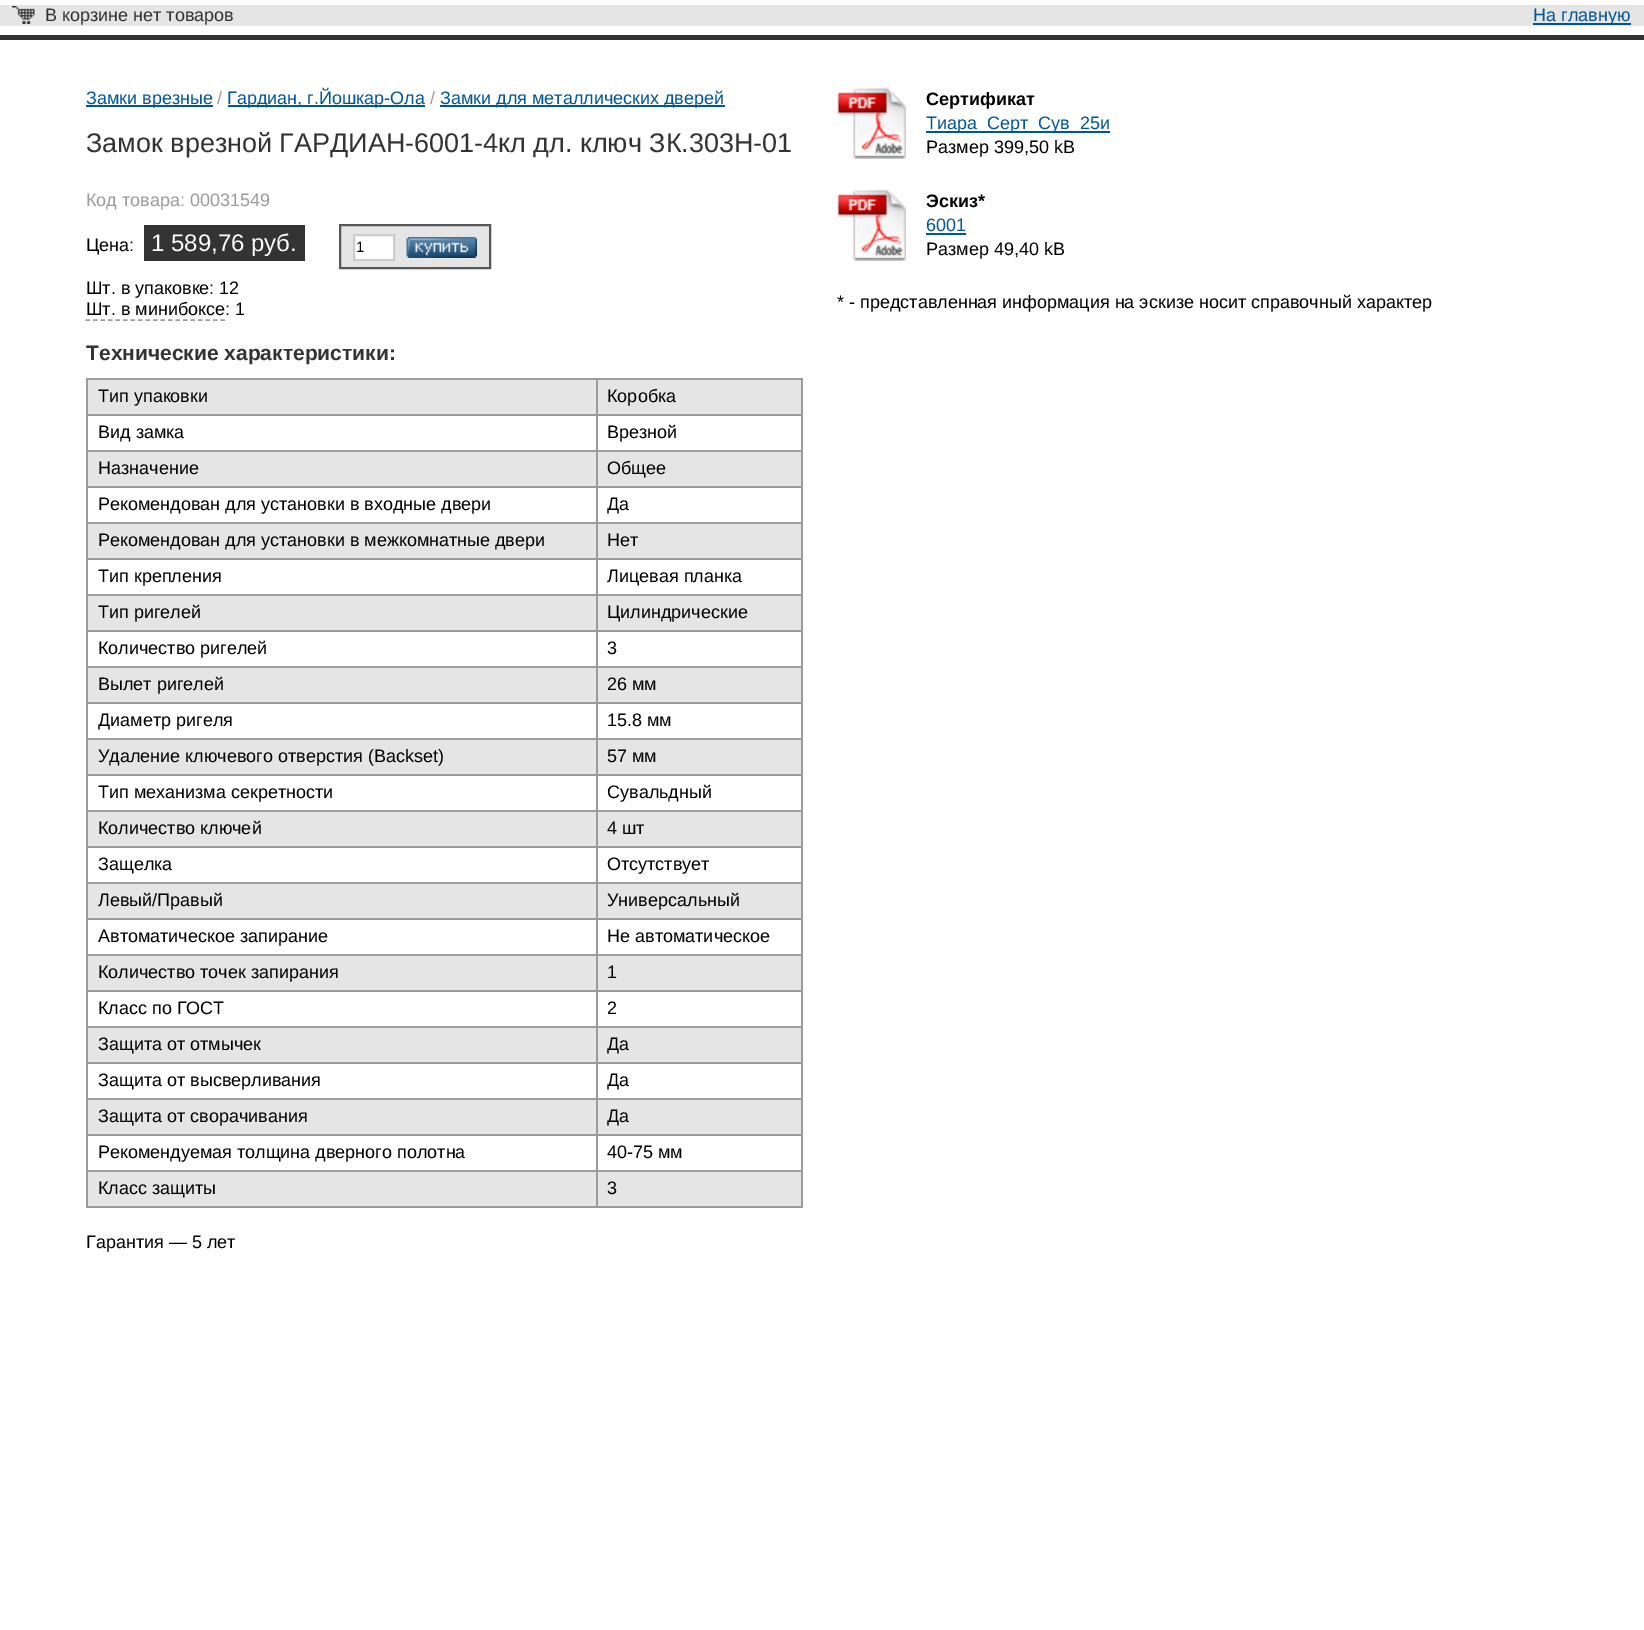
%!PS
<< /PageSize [1644 1630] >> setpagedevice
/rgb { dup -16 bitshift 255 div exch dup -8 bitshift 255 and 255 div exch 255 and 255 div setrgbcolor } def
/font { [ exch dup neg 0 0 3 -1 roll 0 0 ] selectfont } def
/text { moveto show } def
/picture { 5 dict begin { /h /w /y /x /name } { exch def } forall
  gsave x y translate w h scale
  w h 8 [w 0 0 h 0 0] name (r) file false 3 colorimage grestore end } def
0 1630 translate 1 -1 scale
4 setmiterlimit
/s1 { /LiberationSans-Regular 18 font 16#333333 rgb } def
/s2 { /LiberationSans-Regular 18 font 16#005698 rgb } def
/s3 { /LiberationSans-Regular 18 font 16#9B9B9B rgb } def
/s4 { /LiberationSans-Regular 27 font 16#333333 rgb } def
/s5 { /LiberationSans-Regular 18 font 16#000000 rgb } def
/s6 { /LiberationSans-Regular 24 font 16#FFFFFF rgb } def
/s7 { /LiberationSans-Regular 15 font 16#000000 rgb } def
/s8 { /LiberationSans-Bold 21 font 16#333333 rgb } def
/s9 { /LiberationSans-Bold 18 font 16#000000 rgb } def
16#FFFFFF rgb
0 0 1644 1630 rectfill
16#333333 rgb
0 35 1644 5 rectfill
16#E5E5E5 rgb
0 5 1644 21 rectfill
(pic1.raw) 12 6 23 18 picture
s1
(В корзине нет товаров) 45 21 text
16#005698 rgb
1533 23 98 2 rectfill
(На главную) 1533 21 text
86 105 127 2 rectfill
(Замки врезные) 86 104 text
s3
(/) 217 104 text
16#005698 rgb
228 105 197 2 rectfill
(Гардиан, г.Йошкар-Ола) 227 104 text
s3
(/) 430 104 text
16#005698 rgb
440 105 285 2 rectfill
(Замки для металлических дверей) 440 104 text
s4
(Замок врезной ГАРДИАН-6001-4кл дл. ключ ЗК.303Н-01) 86 152 text
s3
(Код товара: 00031549) 86 206 text
s5
(Цена:) 86 251 text
16#333333 rgb
144 225 161 36 rectfill
s6
(1 589,76 руб.) 151 251 text
16#E5E5E5 rgb
340 225 moveto 490 225 lineto 490 268 lineto 340 268 lineto closepath gsave fill grestore
16#555759 rgb
2 setlinewidth
stroke
16#FFFFFF rgb
354 235 moveto 394 235 lineto 394 260 lineto 354 260 lineto closepath gsave fill grestore
16#CCCCCC rgb
stroke
s7
(1) 356 252 text
(pic2.raw) 406 237 71 21 picture
s5
(Шт. в упаковке: 12) 86 294 text
(Шт. в минибоксе: 1) 86 315 text
16#9B9B9B rgb
1.5 setlinewidth
[4.5 3] 0 setdash
85.5 320 moveto 225 320 lineto stroke
s8
(Технические характеристики:) 86 360 text
16#E5E5E5 rgb
88 380 508 34 rectfill
16#9B9B9B rgb
596 378 207 2 rectfill
596 414 207 2 rectfill
596 450 207 2 rectfill
596 486 207 2 rectfill
596 522 207 2 rectfill
596 558 207 2 rectfill
596 594 207 2 rectfill
596 630 207 2 rectfill
596 666 207 2 rectfill
596 702 207 2 rectfill
596 738 207 2 rectfill
596 774 207 2 rectfill
596 810 207 2 rectfill
596 846 207 2 rectfill
596 882 207 2 rectfill
596 918 207 2 rectfill
596 954 207 2 rectfill
596 990 207 2 rectfill
596 1026 207 2 rectfill
596 1062 207 2 rectfill
596 1098 207 2 rectfill
596 1134 207 2 rectfill
596 1170 207 2 rectfill
801 1170 2 38 rectfill
596 1206 207 2 rectfill
596 1170 2 38 rectfill
86 1170 511 2 rectfill
596 1134 2 38 rectfill
86 1134 511 2 rectfill
596 1098 2 38 rectfill
86 1098 511 2 rectfill
596 1062 2 38 rectfill
86 1062 511 2 rectfill
596 1026 2 38 rectfill
86 1026 511 2 rectfill
596 990 2 38 rectfill
86 990 511 2 rectfill
596 954 2 38 rectfill
86 954 511 2 rectfill
596 918 2 38 rectfill
86 918 511 2 rectfill
596 882 2 38 rectfill
86 882 511 2 rectfill
596 846 2 38 rectfill
86 846 511 2 rectfill
596 810 2 38 rectfill
86 810 511 2 rectfill
596 774 2 38 rectfill
86 774 511 2 rectfill
596 738 2 38 rectfill
86 738 511 2 rectfill
596 702 2 38 rectfill
86 702 511 2 rectfill
596 666 2 38 rectfill
86 666 511 2 rectfill
596 630 2 38 rectfill
86 630 511 2 rectfill
596 594 2 38 rectfill
86 594 511 2 rectfill
596 558 2 38 rectfill
86 558 511 2 rectfill
596 522 2 38 rectfill
86 522 511 2 rectfill
596 486 2 38 rectfill
86 486 511 2 rectfill
596 450 2 38 rectfill
86 450 511 2 rectfill
596 414 2 38 rectfill
86 414 511 2 rectfill
596 378 2 38 rectfill
86 378 511 2 rectfill
86 1206 511 2 rectfill
86 1170 2 38 rectfill
86 1134 2 38 rectfill
86 1098 2 38 rectfill
86 1062 2 38 rectfill
86 1026 2 38 rectfill
86 990 2 38 rectfill
86 954 2 38 rectfill
86 918 2 38 rectfill
86 882 2 38 rectfill
86 846 2 38 rectfill
86 810 2 38 rectfill
86 774 2 38 rectfill
86 738 2 38 rectfill
86 702 2 38 rectfill
86 666 2 38 rectfill
86 630 2 38 rectfill
86 594 2 38 rectfill
86 558 2 38 rectfill
86 522 2 38 rectfill
86 486 2 38 rectfill
86 450 2 38 rectfill
86 414 2 38 rectfill
86 378 2 38 rectfill
s5
(Тип упаковки) 98 402 text
16#E5E5E5 rgb
598 380 203 34 rectfill
16#9B9B9B rgb
801 1134 2 38 rectfill
801 1098 2 38 rectfill
801 1062 2 38 rectfill
801 1026 2 38 rectfill
801 990 2 38 rectfill
801 954 2 38 rectfill
801 918 2 38 rectfill
801 882 2 38 rectfill
801 846 2 38 rectfill
801 810 2 38 rectfill
801 774 2 38 rectfill
801 738 2 38 rectfill
801 702 2 38 rectfill
801 666 2 38 rectfill
801 630 2 38 rectfill
801 594 2 38 rectfill
801 558 2 38 rectfill
801 522 2 38 rectfill
801 486 2 38 rectfill
801 450 2 38 rectfill
801 414 2 38 rectfill
801 378 2 38 rectfill
s5
(Коробка) 607 402 text
(Вид замка) 98 438 text
(Врезной) 607 438 text
16#E5E5E5 rgb
88 452 508 34 rectfill
s5
(Назначение) 98 474 text
16#E5E5E5 rgb
598 452 203 34 rectfill
s5
(Общее) 607 474 text
(Рекомендован для установки в входные двери) 98 510 text
(Да) 607 510 text
16#E5E5E5 rgb
88 524 508 34 rectfill
s5
(Рекомендован для установки в межкомнатные двери) 98 546 text
16#E5E5E5 rgb
598 524 203 34 rectfill
s5
(Нет) 607 546 text
(Тип крепления) 98 582 text
(Лицевая планка) 607 582 text
16#E5E5E5 rgb
88 596 508 34 rectfill
s5
(Тип ригелей) 98 618 text
16#E5E5E5 rgb
598 596 203 34 rectfill
s5
(Цилиндрические) 607 618 text
(Количество ригелей) 98 654 text
(3) 607 654 text
16#E5E5E5 rgb
88 668 508 34 rectfill
s5
(Вылет ригелей) 98 690 text
16#E5E5E5 rgb
598 668 203 34 rectfill
s5
(26 мм) 607 690 text
(Диаметр ригеля) 98 726 text
(15.8 мм) 607 726 text
16#E5E5E5 rgb
88 740 508 34 rectfill
s5
(Удаление ключевого отверстия \(Backset\)) 98 762 text
16#E5E5E5 rgb
598 740 203 34 rectfill
s5
(57 мм) 607 762 text
(Тип механизма секретности) 98 798 text
(Сувальдный) 607 798 text
16#E5E5E5 rgb
88 812 508 34 rectfill
s5
(Количество ключей) 98 834 text
16#E5E5E5 rgb
598 812 203 34 rectfill
s5
(4 шт) 607 834 text
(Защелка) 98 870 text
(Отсутствует) 607 870 text
16#E5E5E5 rgb
88 884 508 34 rectfill
s5
(Левый/Правый) 98 906 text
16#E5E5E5 rgb
598 884 203 34 rectfill
s5
(Универсальный) 607 906 text
(Автоматическое запирание) 98 942 text
(Не автоматическое) 607 942 text
16#E5E5E5 rgb
88 956 508 34 rectfill
s5
(Количество точек запирания) 98 978 text
16#E5E5E5 rgb
598 956 203 34 rectfill
s5
(1) 607 978 text
(Класс по ГОСТ) 98 1014 text
(2) 607 1014 text
16#E5E5E5 rgb
88 1028 508 34 rectfill
s5
(Защита от отмычек) 98 1050 text
16#E5E5E5 rgb
598 1028 203 34 rectfill
s5
(Да) 607 1050 text
(Защита от высверливания) 98 1086 text
(Да) 607 1086 text
16#E5E5E5 rgb
88 1100 508 34 rectfill
s5
(Защита от сворачивания) 98 1122 text
16#E5E5E5 rgb
598 1100 203 34 rectfill
s5
(Да) 607 1122 text
(Рекомендуемая толщина дверного полотна) 98 1158 text
(40-75 мм) 607 1158 text
16#E5E5E5 rgb
88 1172 508 34 rectfill
s5
(Класс защиты) 98 1194 text
16#E5E5E5 rgb
598 1172 203 34 rectfill
s5
(3) 607 1194 text
(Гарантия — 5 лет) 86 1248 text
(pic3.raw) 837 87 69 72 picture
s9
(Сертификат) 926 105 text
16#005698 rgb
926 131 184 2 rectfill
s2
(Тиара_Серт_Сув_25и) 926 129 text
s5
(Размер 399,50 kB) 926 153 text
(pic3.raw) 837 189 69 72 picture
s9
(Эскиз*) 926 207 text
s2
(6001) 926 231 text
926 233 40 2 rectfill
s5
(Размер 49,40 kB) 926 255 text
(* - представленная информация на эскизе носит справочный характер) 837 308 text
showpage
